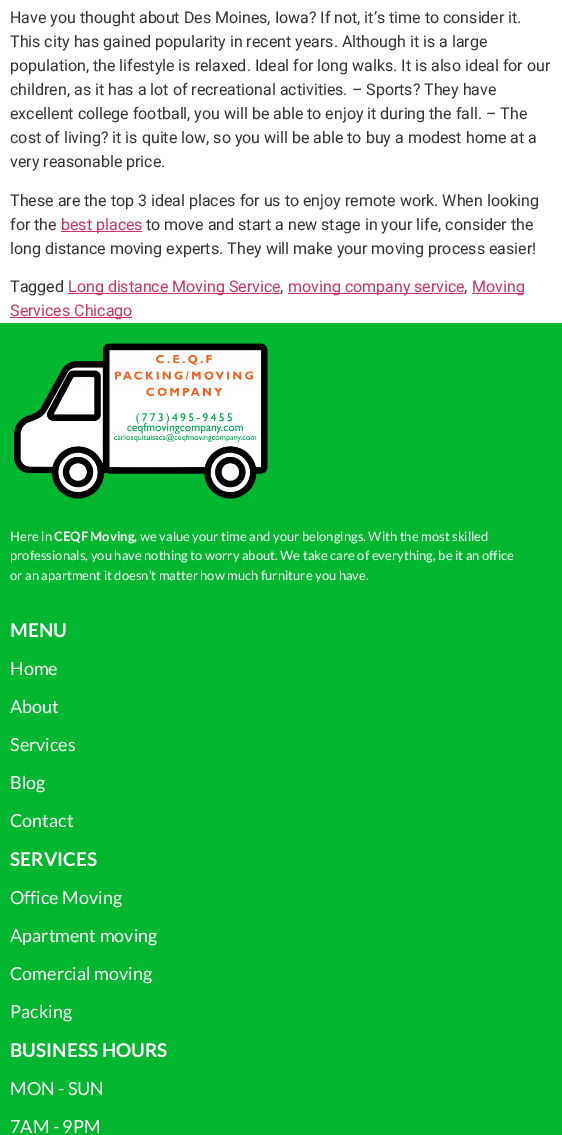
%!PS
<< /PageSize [562 1135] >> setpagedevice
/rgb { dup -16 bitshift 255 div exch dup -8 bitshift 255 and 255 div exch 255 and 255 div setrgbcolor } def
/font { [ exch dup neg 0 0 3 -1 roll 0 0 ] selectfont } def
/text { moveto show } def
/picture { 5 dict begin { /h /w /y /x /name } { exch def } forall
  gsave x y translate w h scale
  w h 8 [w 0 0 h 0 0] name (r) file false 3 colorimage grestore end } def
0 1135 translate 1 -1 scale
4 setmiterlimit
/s1 { /Roboto-Regular 16 font 16#333333 rgb } def
/s2 { /Roboto-Regular 16 font 16#CC3366 rgb } def
/s3 { /Lato-Regular 13 font 16#FFFFFF rgb } def
/s4 { /Lato-Bold 13 font 16#FFFFFF rgb } def
/s5 { /Lato-Bold 19 font 16#FFFFFF rgb } def
/s6 { /Lato-Regular 18 font 16#FFFFFF rgb } def
16#FFFFFF rgb
0 0 562 1135 rectfill
s1
(Have you thought about Des Moines, Iowa? If not, it’s time to consider it.) 10 23 text
(This city has gained popularity in recent years. Although it is a large) 10 47 text
(population, the lifestyle is relaxed. Ideal for long walks. It is also ideal for our) 10 71 text
(children, as it has a lot of recreational activities. – Sports? They have) 10 95 text
(excellent college football, you will be able to enjoy it during the fall. – The) 10 119 text
(cost of living? it is quite low, so you will be able to buy a modest home at a) 10 143 text
(very reasonable price.) 10 167 text
(These are the top 3 ideal places for us to enjoy remote work. When looking) 10 206 text
(for the) 10 230 text
16#CC3366 rgb
61 231 81 1 rectfill
(best places) 61 230 text
s1
(to move and start a new stage in your life, consider the) 146 230 text
(long distance moving experts. They will make your moving process easier!) 10 254 text
(Tagged) 10 292 text
16#CC3366 rgb
68 293 212 1 rectfill
(Long distance Moving Service) 68 292 text
s1
(,) 280 292 text
16#CC3366 rgb
288 293 176 1 rectfill
(moving company service) 288 292 text
s1
(,) 464 292 text
16#CC3366 rgb
472 293 52 1 rectfill
(Moving) 472 292 text
10 317 122 1 rectfill
(Services Chicago) 10 316 text
16#00B72F rgb
0 323 562 812 rectfill
(pic1.raw) 14 343 254 156 picture
s3
(Here in) 10 541 text
s4
(CEQF Moving,) 54 541 text
s3
(we value your time and your belongings. With the most skilled) 140 541 text
(professionals, you have nothing to worry about. We take care of everything, be it an office) 10 560 text
(or an apartment it doesn’t matter how much furniture you have.) 10 580 text
s5
(MENU) 10 637 text
s6
(Home) 10 675 text
(About) 10 713 text
(Services) 10 751 text
(Blog) 10 789 text
(Contact) 10 827 text
s5
(SERVICES) 10 866 text
s6
(Office Moving) 10 904 text
(Apartment moving) 10 942 text
(Comercial moving) 10 980 text
(Packing) 10 1018 text
s5
(BUSINESS HOURS) 10 1057 text
s6
(MON - SUN) 10 1095 text
(7AM - 9PM) 10 1133 text
showpage
